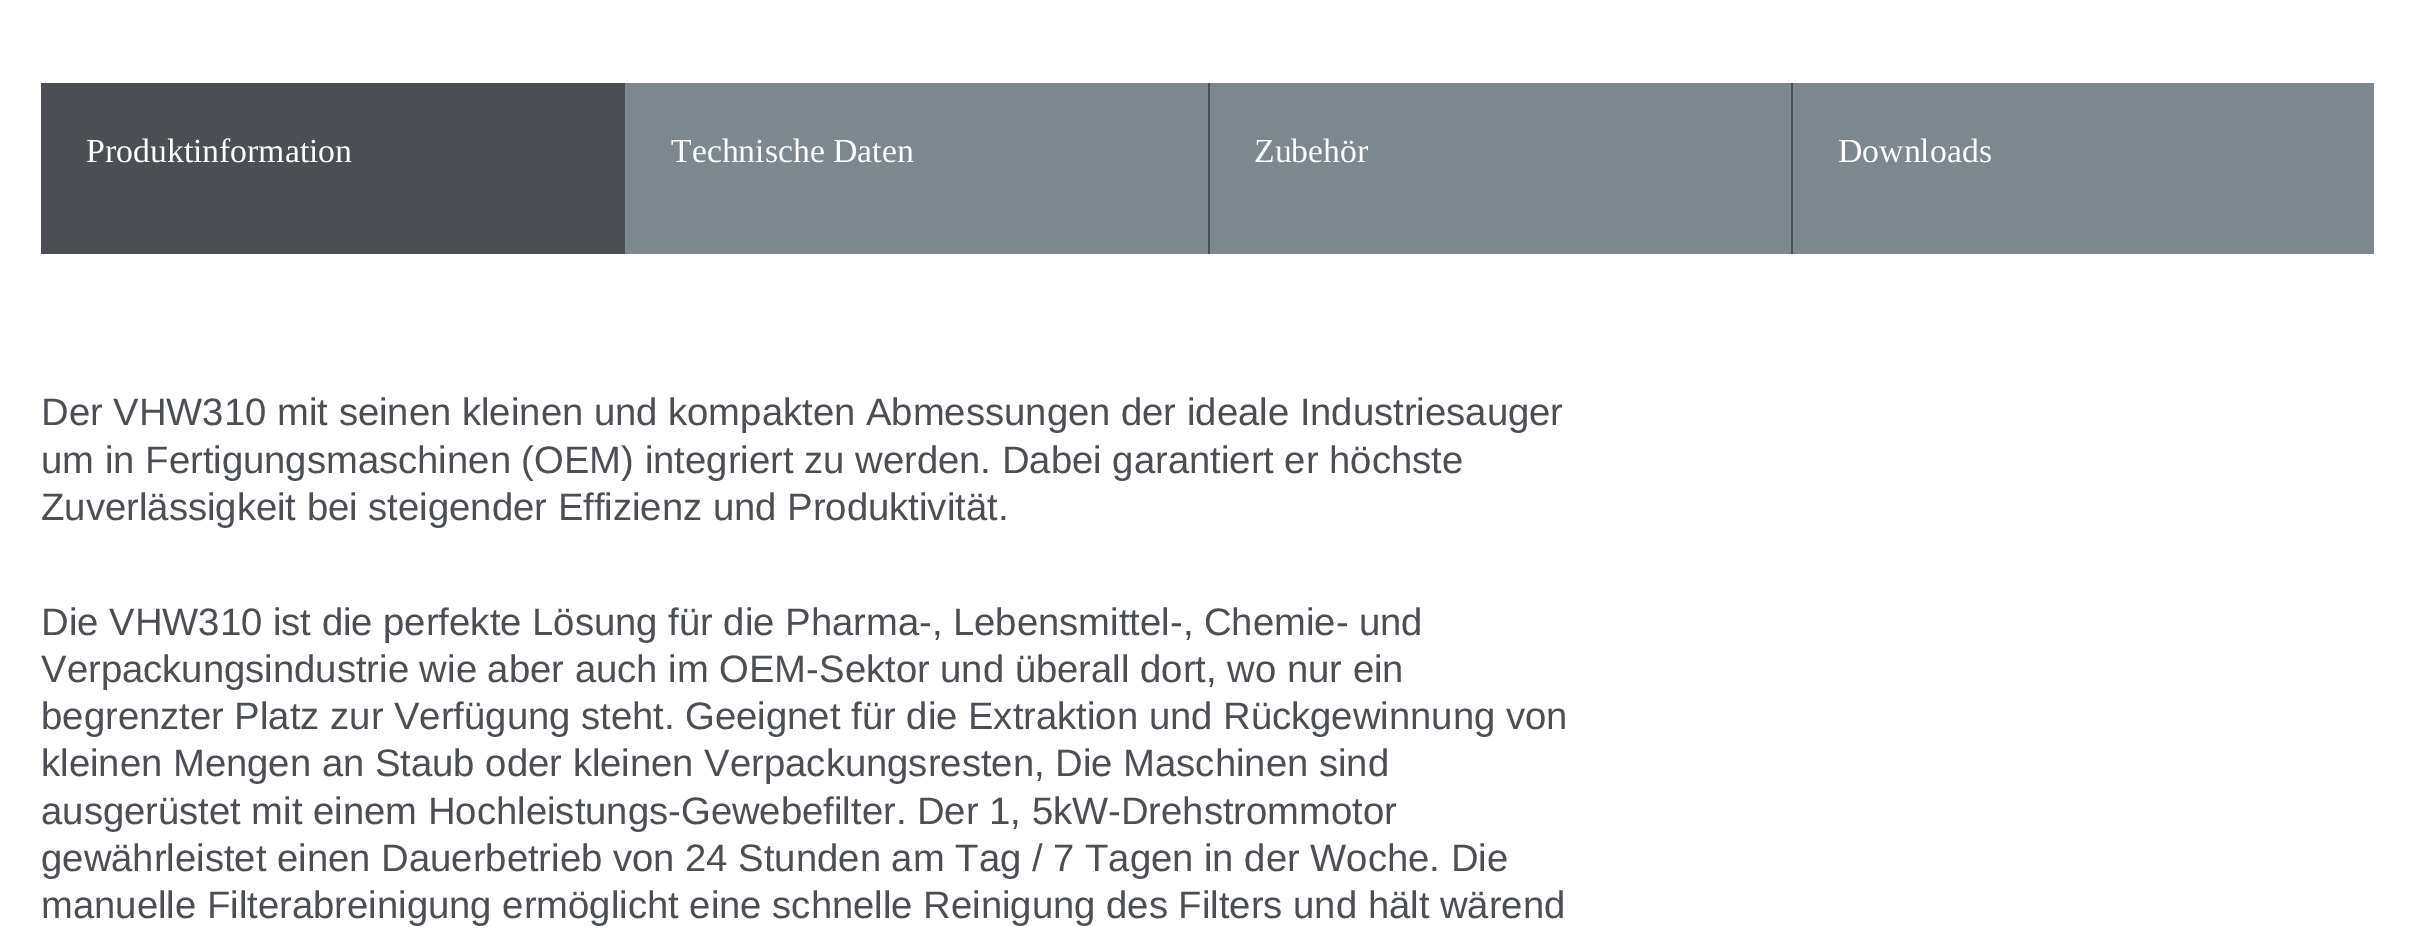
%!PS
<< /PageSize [2413 933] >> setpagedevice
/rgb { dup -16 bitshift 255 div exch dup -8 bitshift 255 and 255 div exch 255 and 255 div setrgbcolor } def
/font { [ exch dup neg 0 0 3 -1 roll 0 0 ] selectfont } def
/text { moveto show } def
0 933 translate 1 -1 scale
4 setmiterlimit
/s1 { /LiberationSerif-Regular 33.75 font 16#FFFFFF rgb } def
/s2 { /LiberationSans-Regular 38.25 font 16#4B4F54 rgb } def
16#FFFFFF rgb
0 0 2413 933 rectfill
16#4B4F54 rgb
41 83 584 171 rectfill
s1
(Produktinformation) 86 162 text
16#7C878E rgb
625 83 583 171 rectfill
s1
(Technische Daten) 671 162 text
16#7C878E rgb
1210 83 581 171 rectfill
16#4B4F54 rgb
1208 83 2 171 rectfill
s1
(Zubehör) 1254 162 text
16#7C878E rgb
1793 83 581 171 rectfill
16#4B4F54 rgb
1791 83 2 171 rectfill
s1
(Downloads) 1838 162 text
s2
(Der VHW310 mit seinen kleinen und kompakten Abmessungen der ideale Industriesauger) 41 425 text
(um in Fertigungsmaschinen \(OEM\) integriert zu werden. Dabei garantiert er höchste) 41 473 text
(Zuverlässigkeit bei steigender Effizienz und Produktivität.) 41 520 text
(Die VHW310 ist die perfekte Lösung für die Pharma-, Lebensmittel-, Chemie- und) 41 635 text
(Verpackungsindustrie wie aber auch im OEM-Sektor und überall dort, wo nur ein) 41 682 text
(begrenzter Platz zur Verfügung steht. Geeignet für die Extraktion und Rückgewinnung von) 41 729 text
(kleinen Mengen an Staub oder kleinen Verpackungsresten, Die Maschinen sind) 41 776 text
(ausgerüstet mit einem Hochleistungs-Gewebefilter. Der 1, 5kW-Drehstrommotor) 41 824 text
(gewährleistet einen Dauerbetrieb von 24 Stunden am Tag / 7 Tagen in der Woche. Die) 41 871 text
(manuelle Filterabreinigung ermöglicht eine schnelle Reinigung des Filters und hält wärend) 41 918 text
showpage
